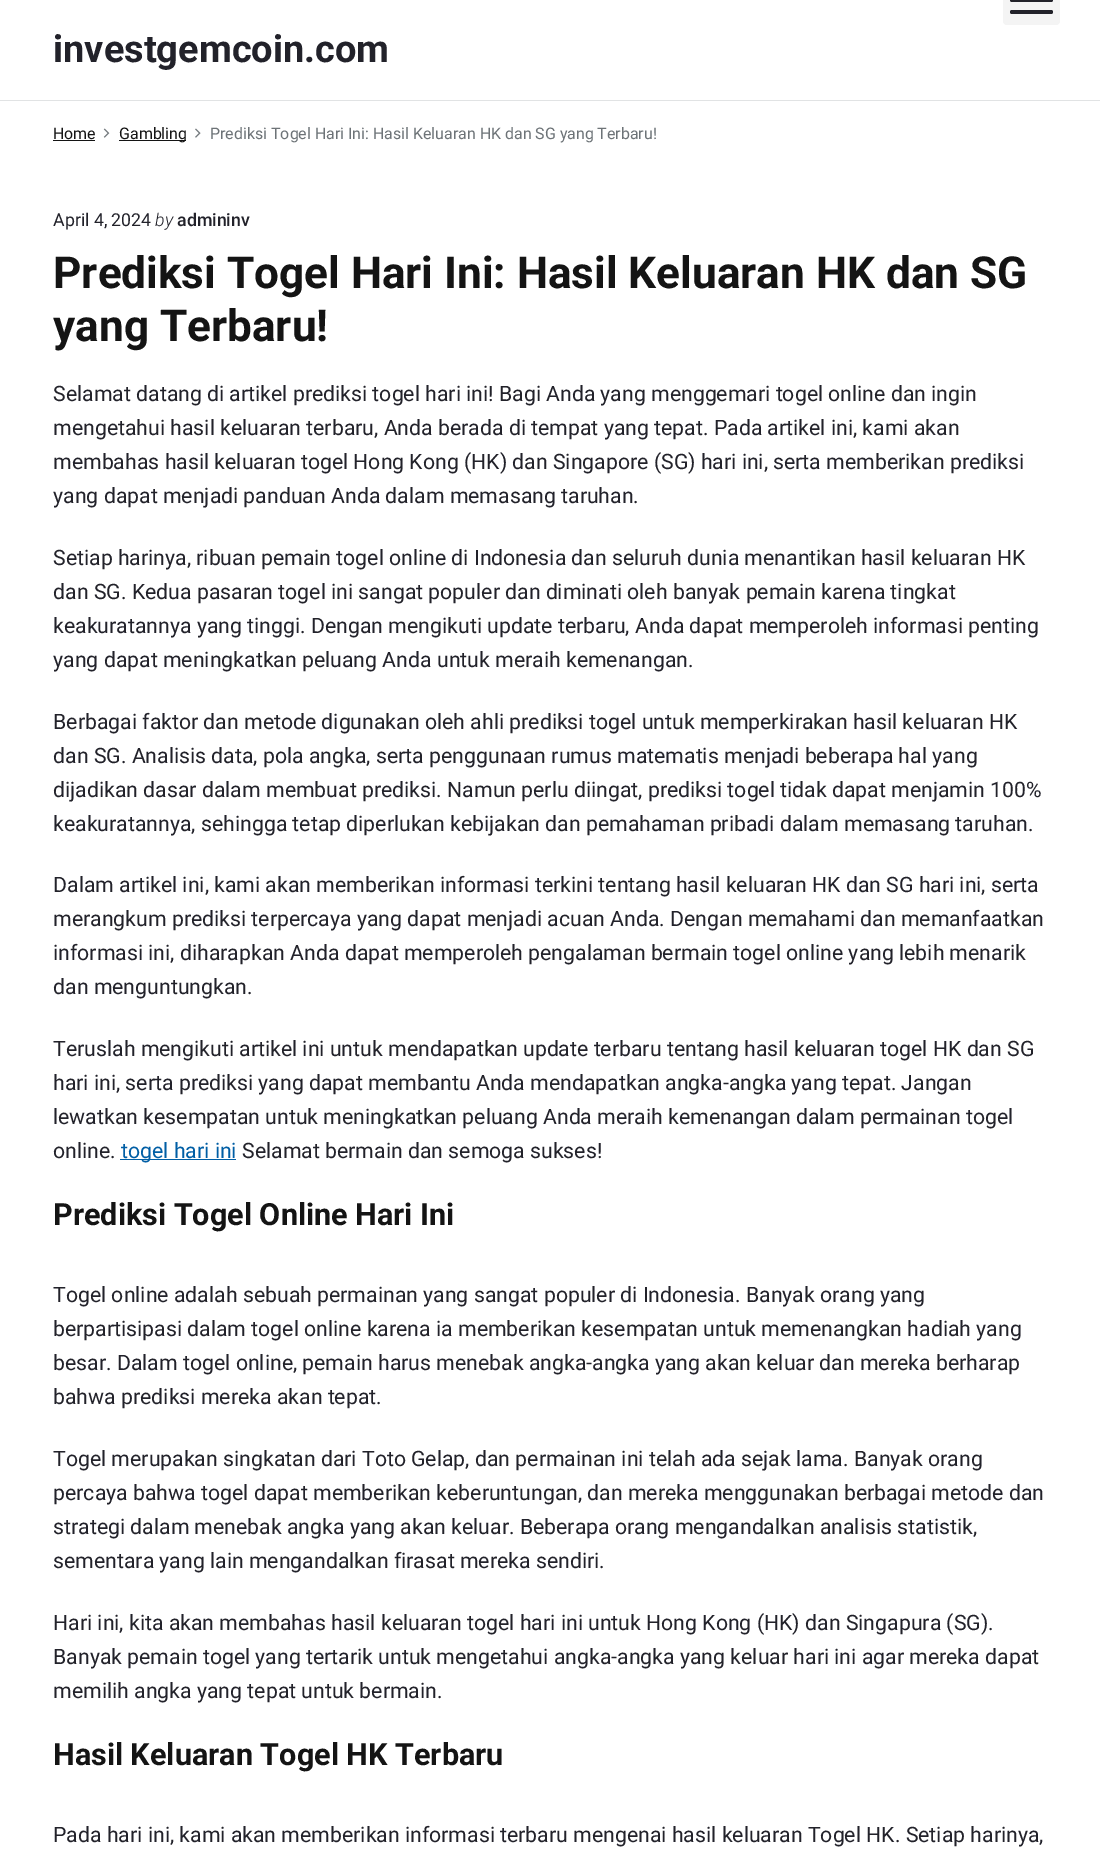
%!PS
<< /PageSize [1100 1850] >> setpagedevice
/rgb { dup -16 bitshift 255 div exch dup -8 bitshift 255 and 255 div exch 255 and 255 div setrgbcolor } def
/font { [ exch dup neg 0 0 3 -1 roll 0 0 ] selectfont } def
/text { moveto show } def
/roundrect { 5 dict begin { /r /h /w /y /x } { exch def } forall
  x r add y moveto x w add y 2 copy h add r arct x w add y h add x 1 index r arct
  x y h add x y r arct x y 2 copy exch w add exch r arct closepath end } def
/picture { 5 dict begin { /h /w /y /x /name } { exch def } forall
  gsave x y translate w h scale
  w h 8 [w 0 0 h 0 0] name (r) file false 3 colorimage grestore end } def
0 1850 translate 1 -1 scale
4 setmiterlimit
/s1 { /Roboto-Bold 38 font 16#22222A rgb } def
/s2 { /Roboto-Regular 15.95 font 16#141414 rgb } def
/s3 { /Roboto-Regular 15.95 font 16#6D7377 rgb } def
/s4 { /Roboto-Regular 17.75 font 16#22222A rgb } def
/s5 { /Roboto-LightItalic 17.75 font 16#22222A rgb } def
/s6 { /Roboto-Medium 17.75 font 16#22222A rgb } def
/s7 { /Roboto-Bold 44.1 font 16#141414 rgb } def
/s8 { /Roboto-Regular 21.25 font 16#22222A rgb } def
/s9 { /Roboto-Regular 21.25 font 16#005EA5 rgb } def
/s10 { /Roboto-Bold 30.6 font 16#141414 rgb } def
16#FFFFFF rgb
0 0 1100 1850 rectfill
16#F4F4F4 rgb
1003 -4 57 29 4 roundrect fill
16#22222A rgb
1010 -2 43 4 2 roundrect fill
1010 10 43 4 2 roundrect fill
s1
(investgemcoin.com) 53 62 text
16#E1E3E4 rgb
0 100 1100 1 rectfill
s2
(Home) 53 139 text
53 140 42 1 rectfill
(pic1.raw) 103 128 7 10 picture
119 140 67 1 rectfill
(Gambling) 119 139 text
(pic2.raw) 195 128 6 10 picture
s3
(Prediksi Togel Hari Ini: Hasil Keluaran HK dan SG yang Terbaru!) 210 139 text
s4
(April 4, 2024) 53 226 text
s5
(by) 155 226 text
s6
(admininv) 177 226 text
s7
(Prediksi Togel Hari Ini: Hasil Keluaran HK dan SG) 53 288 text
(yang Terbaru!) 53 341 text
s8
(Selamat datang di artikel prediksi togel hari ini! Bagi Anda yang menggemari togel online dan ingin) 53 401 text
(mengetahui hasil keluaran terbaru, Anda berada di tempat yang tepat. Pada artikel ini, kami akan) 53 435 text
(membahas hasil keluaran togel Hong Kong \(HK\) dan Singapore \(SG\) hari ini, serta memberikan prediksi) 53 469 text
(yang dapat menjadi panduan Anda dalam memasang taruhan.) 53 503 text
(Setiap harinya, ribuan pemain togel online di Indonesia dan seluruh dunia menantikan hasil keluaran HK) 53 565 text
(dan SG. Kedua pasaran togel ini sangat populer dan diminati oleh banyak pemain karena tingkat) 53 599 text
(keakuratannya yang tinggi. Dengan mengikuti update terbaru, Anda dapat memperoleh informasi penting) 53 633 text
(yang dapat meningkatkan peluang Anda untuk meraih kemenangan.) 53 667 text
(Berbagai faktor dan metode digunakan oleh ahli prediksi togel untuk memperkirakan hasil keluaran HK) 53 729 text
(dan SG. Analisis data, pola angka, serta penggunaan rumus matematis menjadi beberapa hal yang) 53 763 text
(dijadikan dasar dalam membuat prediksi. Namun perlu diingat, prediksi togel tidak dapat menjamin 100%) 53 797 text
(keakuratannya, sehingga tetap diperlukan kebijakan dan pemahaman pribadi dalam memasang taruhan.) 53 831 text
(Dalam artikel ini, kami akan memberikan informasi terkini tentang hasil keluaran HK dan SG hari ini, serta) 53 892 text
(merangkum prediksi terpercaya yang dapat menjadi acuan Anda. Dengan memahami dan memanfaatkan) 53 926 text
(informasi ini, diharapkan Anda dapat memperoleh pengalaman bermain togel online yang lebih menarik) 53 960 text
(dan menguntungkan.) 53 994 text
(Teruslah mengikuti artikel ini untuk mendapatkan update terbaru tentang hasil keluaran togel HK dan SG) 53 1056 text
(hari ini, serta prediksi yang dapat membantu Anda mendapatkan angka-angka yang tepat. Jangan) 53 1090 text
(lewatkan kesempatan untuk meningkatkan peluang Anda meraih kemenangan dalam permainan togel) 53 1124 text
(online.) 53 1158 text
16#005EA5 rgb
120 1159 116 1 rectfill
(togel hari ini) 121 1158 text
s8
(Selamat bermain dan semoga sukses!) 242 1158 text
s10
(Prediksi Togel Online Hari Ini) 53 1225 text
s8
(Togel online adalah sebuah permainan yang sangat populer di Indonesia. Banyak orang yang) 53 1302 text
(berpartisipasi dalam togel online karena ia memberikan kesempatan untuk memenangkan hadiah yang) 53 1336 text
(besar. Dalam togel online, pemain harus menebak angka-angka yang akan keluar dan mereka berharap) 53 1370 text
(bahwa prediksi mereka akan tepat.) 53 1404 text
(Togel merupakan singkatan dari Toto Gelap, dan permainan ini telah ada sejak lama. Banyak orang) 53 1466 text
(percaya bahwa togel dapat memberikan keberuntungan, dan mereka menggunakan berbagai metode dan) 53 1500 text
(strategi dalam menebak angka yang akan keluar. Beberapa orang mengandalkan analisis statistik,) 53 1534 text
(sementara yang lain mengandalkan firasat mereka sendiri.) 53 1568 text
(Hari ini, kita akan membahas hasil keluaran togel hari ini untuk Hong Kong \(HK\) dan Singapura \(SG\).) 53 1630 text
(Banyak pemain togel yang tertarik untuk mengetahui angka-angka yang keluar hari ini agar mereka dapat) 53 1664 text
(memilih angka yang tepat untuk bermain.) 53 1698 text
s10
(Hasil Keluaran Togel HK Terbaru) 53 1765 text
s8
(Pada hari ini, kami akan memberikan informasi terbaru mengenai hasil keluaran Togel HK. Setiap harinya,) 53 1842 text
showpage
